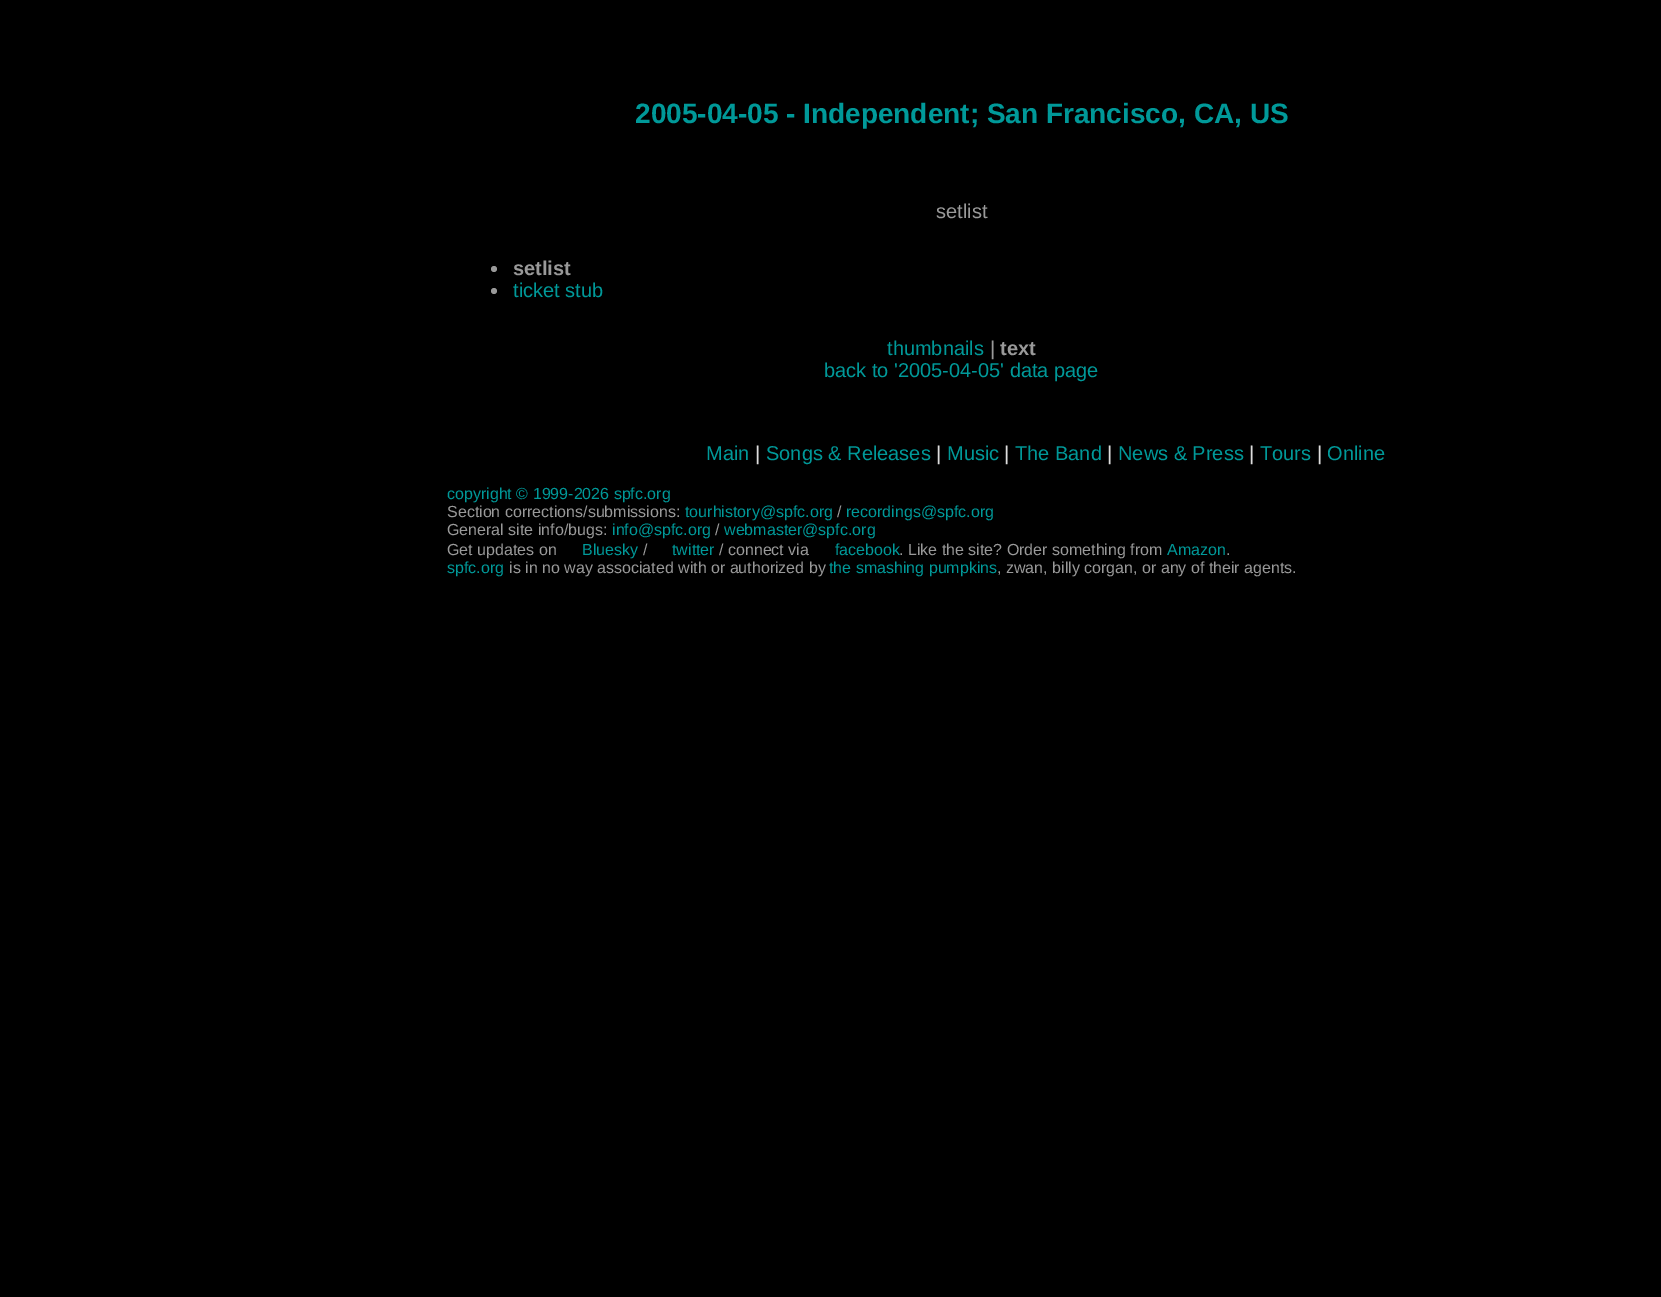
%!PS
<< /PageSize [1661 1297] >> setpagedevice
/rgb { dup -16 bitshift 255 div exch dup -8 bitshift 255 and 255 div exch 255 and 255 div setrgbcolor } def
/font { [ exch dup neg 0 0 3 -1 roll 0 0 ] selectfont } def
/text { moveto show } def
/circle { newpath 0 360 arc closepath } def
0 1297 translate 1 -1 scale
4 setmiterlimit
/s1 { /LiberationSans-Bold 28 font 16#009999 rgb } def
/s2 { /LiberationSans-Regular 20 font 16#999999 rgb } def
/s3 { /LiberationSans-Bold 20 font 16#999999 rgb } def
/s4 { /LiberationSans-Regular 20 font 16#009999 rgb } def
/s5 { /LiberationSans-Regular 20 font 16#DDDDDD rgb } def
/s6 { /LiberationSans-Regular 16 font 16#009999 rgb } def
/s7 { /LiberationSans-Regular 16 font 16#999999 rgb } def
16#000000 rgb
0 0 1661 1297 rectfill
s1
(2005-04-05 - Independent; San Francisco, CA, US) 635 123 text
s2
(setlist) 936 218 text
494 269 3 circle fill
s3
(setlist) 513 275 text
494 291 3 circle fill
s4
(ticket stub) 513 297 text
(thumbnails) 887 355 text
s2
(|) 990 355 text
s3
(text) 1000 355 text
s4
(back to '2005-04-05' data page) 824 377 text
(Main) 706 460 text
s5
(|) 755 460 text
s4
(Songs & Releases) 766 460 text
s5
(|) 936 460 text
s4
(Music) 947 460 text
s5
(|) 1004 460 text
s4
(The Band) 1015 460 text
s5
(|) 1107 460 text
s4
(News & Press) 1118 460 text
s5
(|) 1249 460 text
s4
(Tours) 1260 460 text
s5
(|) 1317 460 text
s4
(Online) 1327 460 text
s6
(copyright © 1999-2026 spfc.org) 447 499 text
s7
(Section corrections/submissions:) 447 517 text
s6
(tourhistory@spfc.org) 685 517 text
s7
(/) 837 517 text
s6
(recordings@spfc.org) 846 517 text
s7
(General site info/bugs:) 447 535 text
s6
(info@spfc.org) 612 535 text
s7
(/) 715 535 text
s6
(webmaster@spfc.org) 724 535 text
s7
(Get updates on) 447 555 text
s6
(Bluesky) 582 555 text
s7
(/) 643 555 text
s6
(twitter) 672 555 text
s7
(/ connect via) 719 555 text
s6
(facebook) 835 555 text
s7
(. Like the site? Order something from) 899 555 text
s6
(Amazon) 1167 555 text
s7
(.) 1226 555 text
s6
(spfc.org) 447 573 text
s7
(is in no way associated with or authorized by) 509 573 text
s6
(the smashing pumpkins) 829 573 text
s7
(, zwan, billy corgan, or any of their agents.) 997 573 text
showpage
